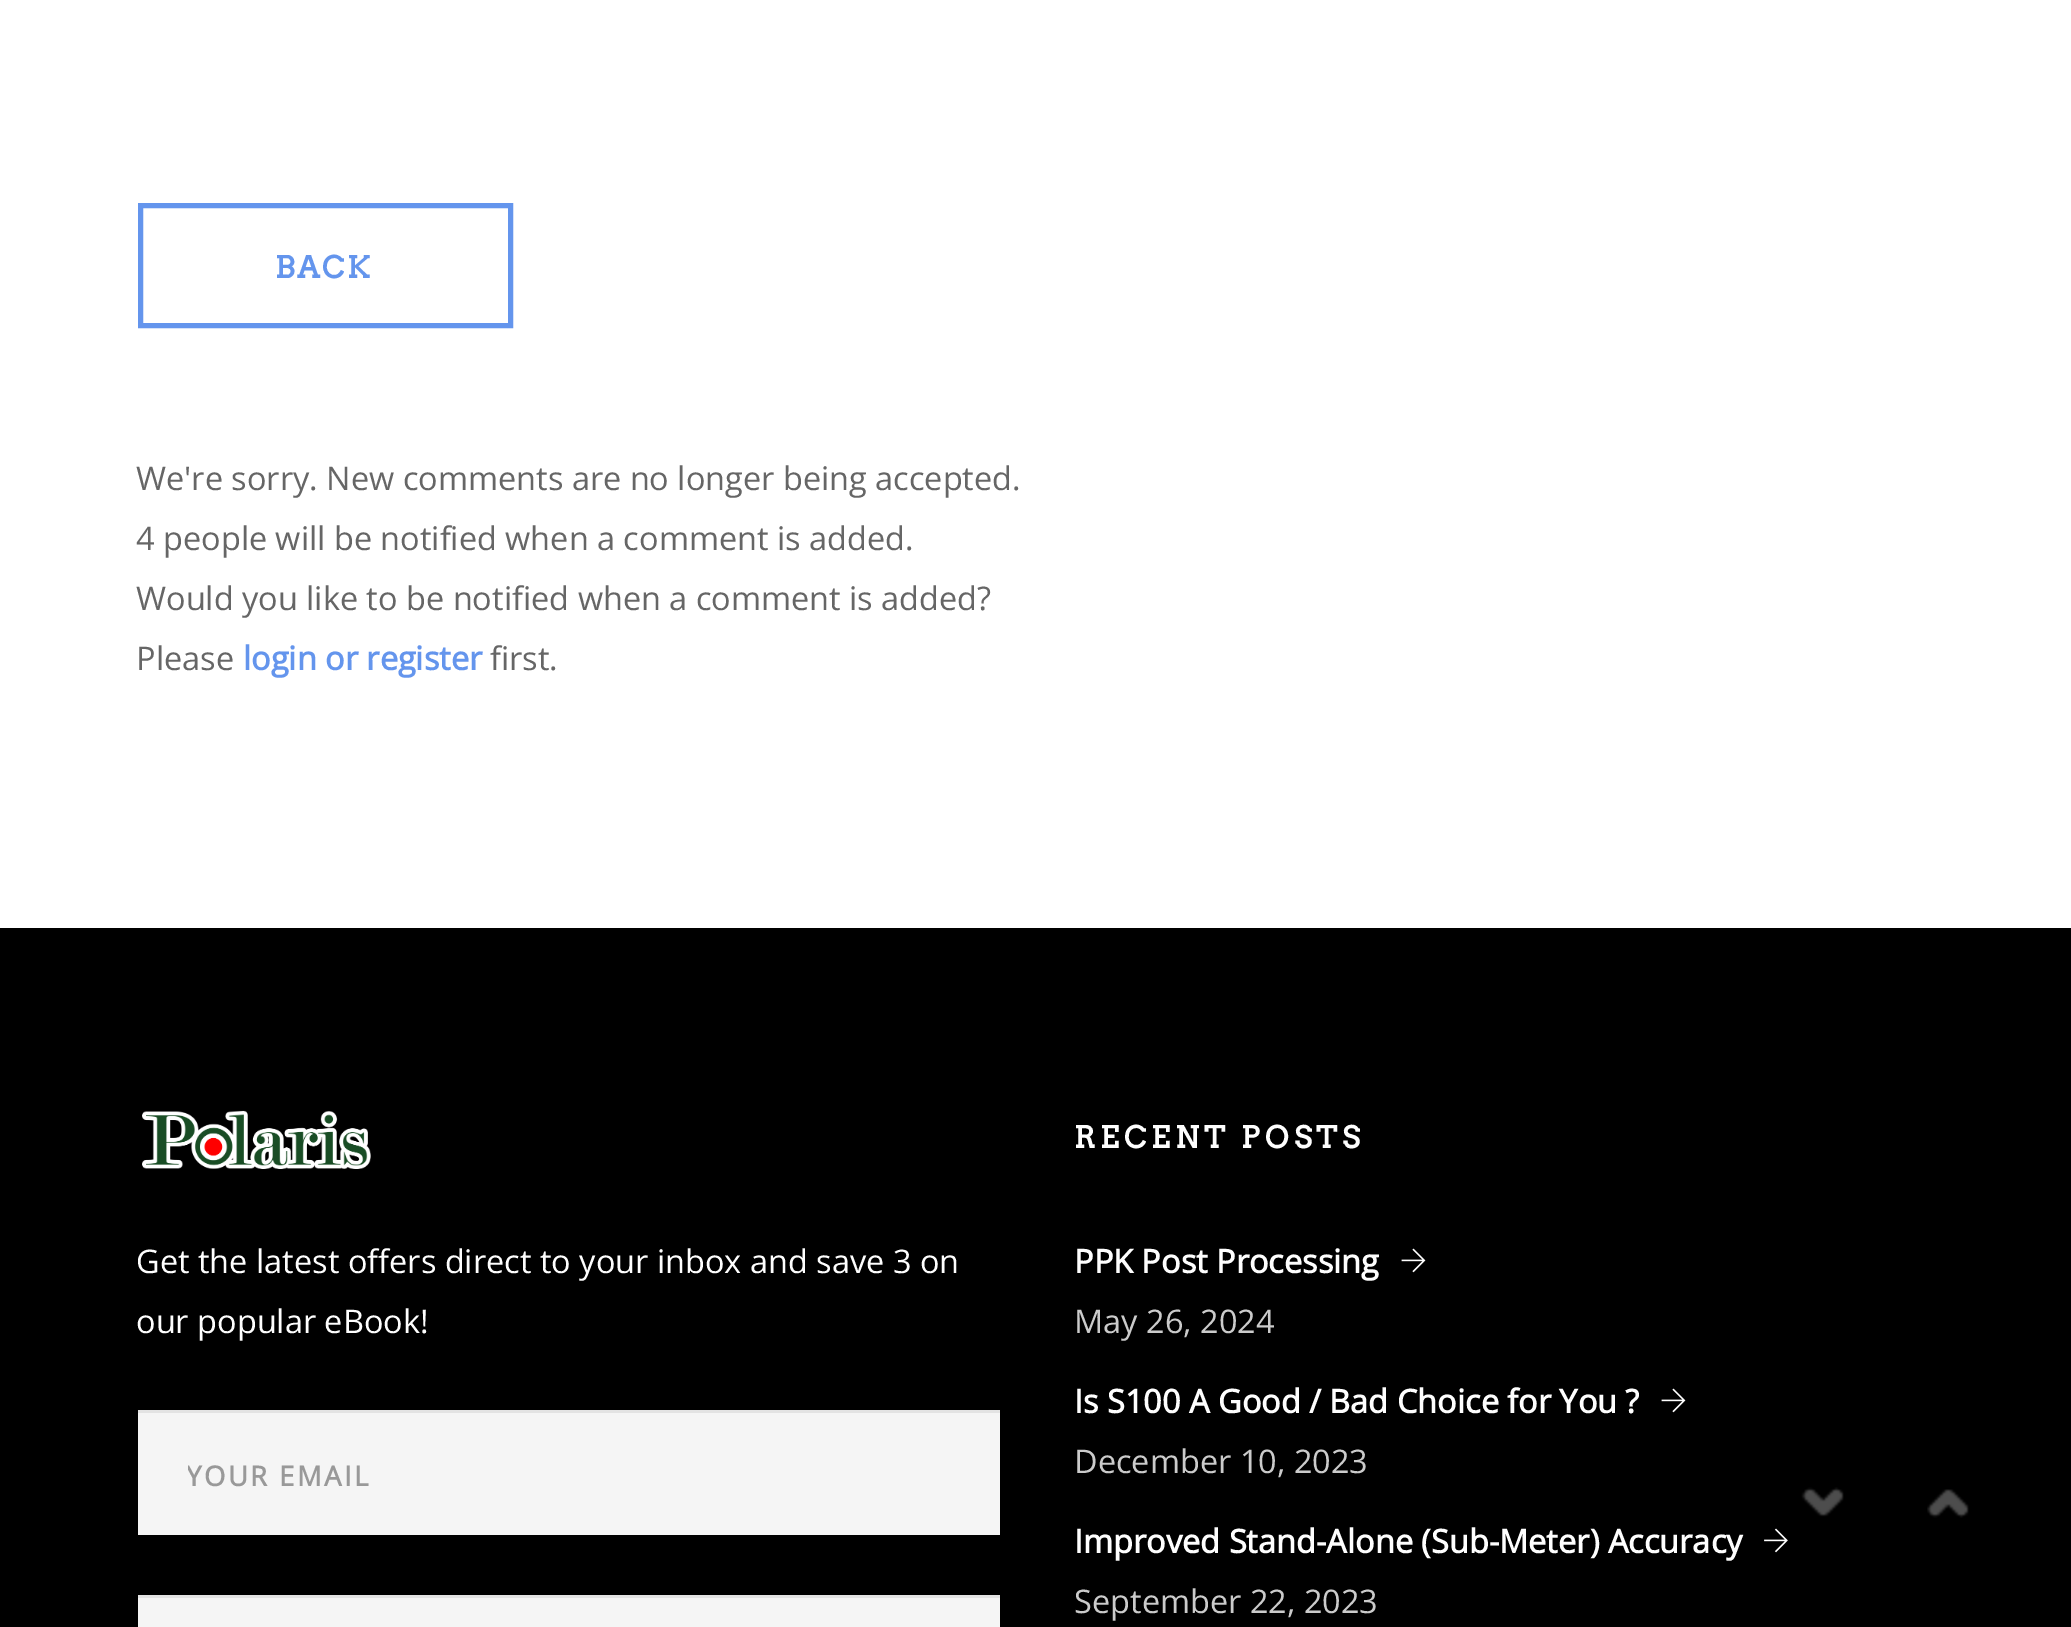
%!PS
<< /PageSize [2071 1627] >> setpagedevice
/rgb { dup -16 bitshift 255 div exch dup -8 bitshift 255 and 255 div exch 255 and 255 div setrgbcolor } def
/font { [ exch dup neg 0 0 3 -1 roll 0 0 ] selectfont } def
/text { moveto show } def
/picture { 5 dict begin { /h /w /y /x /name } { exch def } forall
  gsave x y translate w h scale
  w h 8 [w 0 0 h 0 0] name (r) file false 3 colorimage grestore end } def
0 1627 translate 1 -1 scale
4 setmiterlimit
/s1 { /OpenSans-Regular 32.5 font 16#666666 rgb } def
/s2 { /OpenSans-Bold 32.5 font 16#6495ED rgb } def
/s3 { /OpenSans-Regular 32.5 font 16#FEFEFE rgb } def
/s4 { /OpenSans-Bold 32.5 font 16#FEFEFE rgb } def
/s5 { /OpenSans-Regular 32.5 font 16#CBCBCB rgb } def
16#FFFFFF rgb
0 0 2071 1627 rectfill
16#6495ED rgb
5 setlinewidth
140.5 205.5 370 120 rectstroke
/Arvo-Bold 30 font
275 278 moveto 2.5 0 (BACK) ashow
s1
(We're sorry. New comments are no longer being accepted.) 136 490 text
(4 people will be notified when a comment is added.) 136 550 text
(Would you like to be notified when a comment is added?) 136 610 text
(Please) 136 670 text
s2
(login or register) 243 670 text
s1
(first.) 490 670 text
16#000000 rgb
0 928 2071 699 rectfill
(pic1.raw) 142 1110 229 59 picture
s3
(Get the latest offers direct to your inbox and save 3 on) 136 1273 text
(our popular eBook!) 136 1333 text
16#F5F5F5 rgb
138 1413 862 122 rectfill
16#E3E3E3 rgb
138 1410 862 3 rectfill
gsave
188 1458 782 37 rectclip
/OpenSans-Bold 27.5 font
16#999999 rgb
186 1486 moveto 2.5 0 (YOUR EMAIL) ashow
grestore
16#F5F5F5 rgb
138 1598 862 29 rectfill
16#E3E3E3 rgb
138 1595 862 3 rectfill
/Arvo-Bold 30 font
16#FEFEFE rgb
1074 1148 moveto 5 0 (RECENT POSTS) ashow
s4
(PPK Post Processing) 1074 1273 text
(pic2.raw) 1401 1248 25 25 picture
s5
(May 26, 2024) 1074 1333 text
s4
(Is S100 A Good / Bad Choice for You ?) 1074 1413 text
(pic2.raw) 1661 1388 25 25 picture
s5
(December 10, 2023) 1074 1473 text
s4
(Improved Stand-Alone \(Sub-Meter\) Accuracy) 1074 1553 text
(pic3.raw) 1764 1528 24 25 picture
s5
(September 22, 2023) 1074 1613 text
(pic4.raw) 1782 1487 62 54 picture
(pic5.raw) 1927 1489 42 29 picture
showpage
